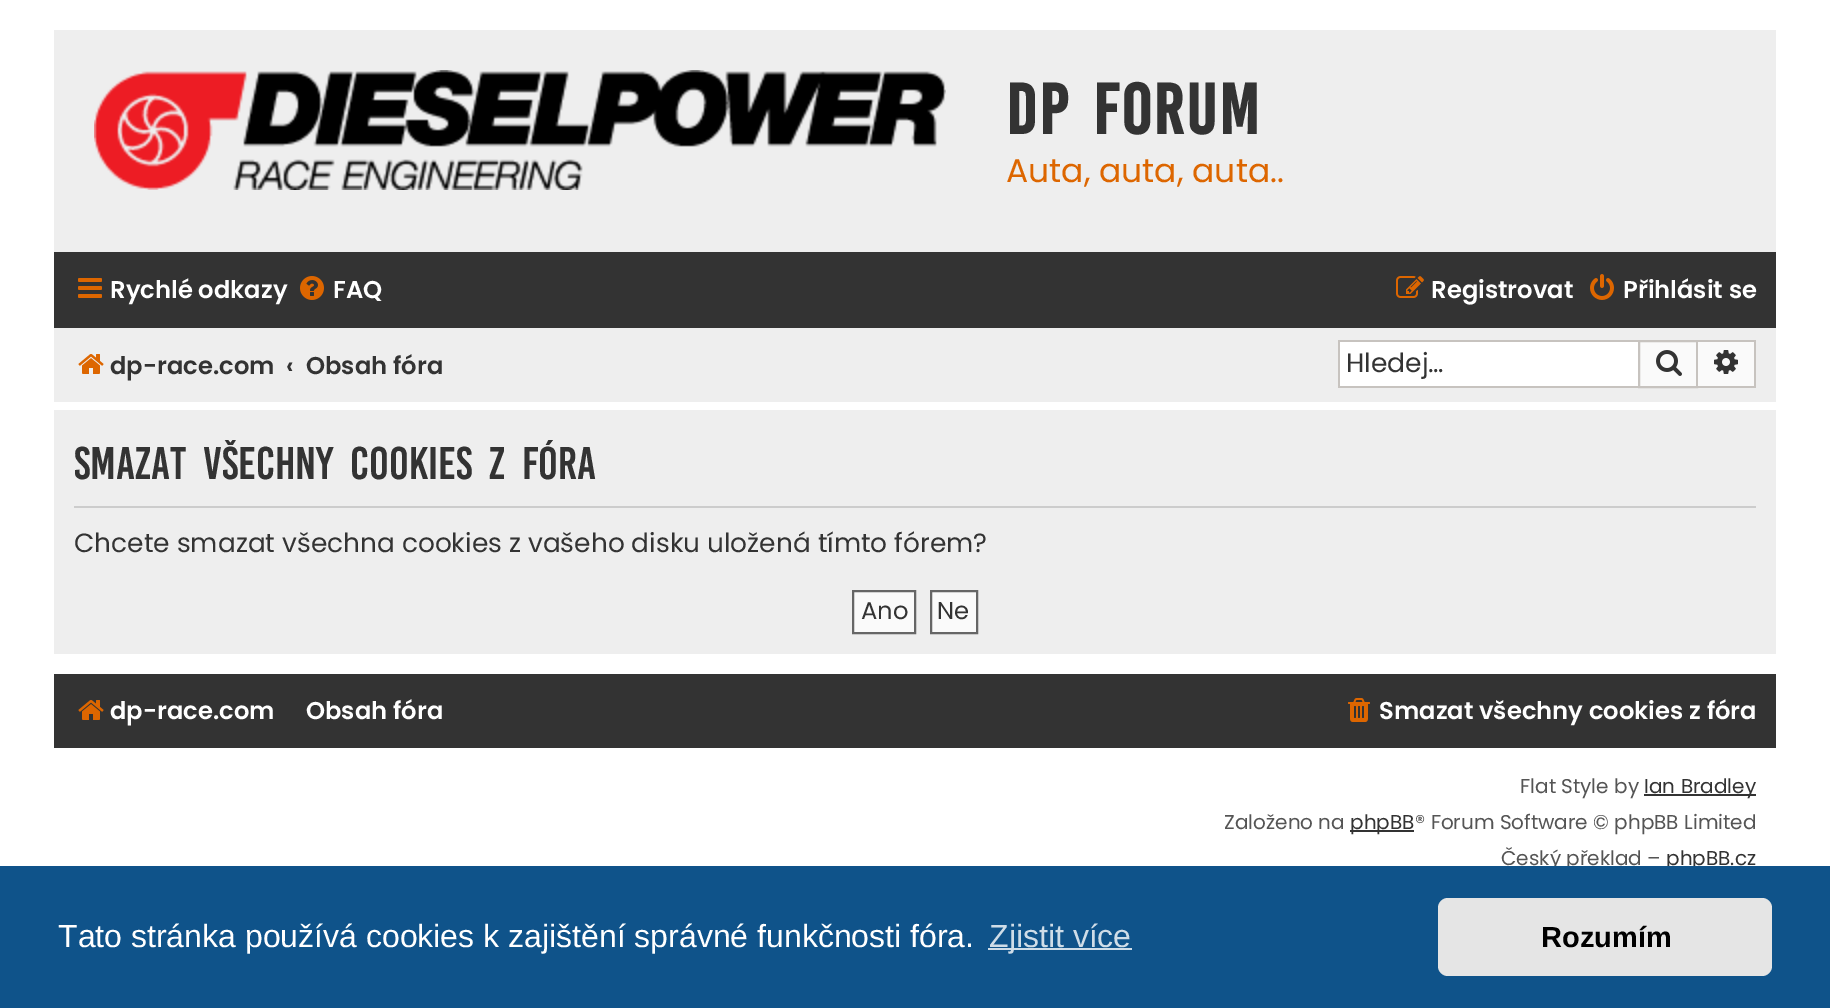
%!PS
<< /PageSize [1830 1008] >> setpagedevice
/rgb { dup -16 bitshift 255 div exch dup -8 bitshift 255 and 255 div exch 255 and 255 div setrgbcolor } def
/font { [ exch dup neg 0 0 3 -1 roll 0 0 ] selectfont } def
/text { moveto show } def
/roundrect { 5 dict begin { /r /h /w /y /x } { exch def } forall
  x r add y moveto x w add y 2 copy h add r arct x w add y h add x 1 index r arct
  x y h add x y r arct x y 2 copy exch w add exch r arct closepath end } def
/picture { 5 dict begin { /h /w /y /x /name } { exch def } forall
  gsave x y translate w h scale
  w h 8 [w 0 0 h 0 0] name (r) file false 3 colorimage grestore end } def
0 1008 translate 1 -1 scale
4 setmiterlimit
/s1 { /Poppins-Regular 33 font 16#DD6600 rgb } def
/s2 { /Poppins-SemiBold 24.25 font 16#FFFFFF rgb } def
/s3 { /Poppins-SemiBold 24.25 font 16#333333 rgb } def
/s4 { /Poppins-Regular 26.5 font 16#333333 rgb } def
/s5 { /Poppins-Regular 26.4 font 16#333333 rgb } def
/s6 { /Poppins-Regular 24.25 font 16#333333 rgb } def
/s7 { /Poppins-Regular 20 font 16#555555 rgb } def
/s8 { /Poppins-Regular 20 font 16#333333 rgb } def
/s9 { /LiberationSans-Regular 32 font 16#FFFFFF rgb } def
/s10 { /LiberationSans-Regular 32 font 16#CFDDE8 rgb } def
/s11 { /LiberationSans-Bold 29 font 16#000000 rgb } def
16#FFFFFF rgb
0 0 1830 1008 rectfill
16#EEEEEE rgb
54 30 1722 222 rectfill
(pic1.raw) 94 70 852 120 picture
/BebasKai-Bold 55 font
16#333333 rgb
1006 134 moveto 8 0 32 2 0 (DP forum) awidthshow
s1
(Auta, auta, auta..) 1006 182 text
16#333333 rgb
54 252 1722 76 rectfill
(pic2.raw) 78 278 24 20 picture
s2
(Rychlé odkazy) 110 298 text
(pic3.raw) 300 276 24 24 picture
(FAQ) 333 298 text
(pic4.raw) 1396 276 28 22 picture
(Registrovat) 1431 298 text
(pic5.raw) 1590 274 24 26 picture
(Přihlásit se) 1623 298 text
16#EEEEEE rgb
54 328 1722 74 rectfill
(pic6.raw) 78 354 26 20 picture
s3
(dp-race.com) 110 374 text
(‹) 286 374 text
(Obsah fóra) 306 374 text
16#FFFFFF rgb
1340 342 298 44 rectfill
16#C7C3BF rgb
1338 340 300 2 rectfill
1338 386 300 2 rectfill
1338 340 2 48 rectfill
s4
(Hledej…) 1346 372 text
16#FAFAFA rgb
1639 341 moveto 1697 341 lineto 1697 387 lineto 1639 387 lineto closepath gsave fill grestore
16#C7C3BF rgb
2 setlinewidth
stroke
(pic7.raw) 1656 350 26 26 picture
16#FAFAFA rgb
1698 342 56 44 rectfill
16#C7C3BF rgb
1698 340 58 2 rectfill
1754 340 2 48 rectfill
1698 386 58 2 rectfill
(pic8.raw) 1714 350 24 24 picture
16#EEEEEE rgb
54 410 1722 244 rectfill
16#CCCCCC rgb
74 506 1682 2 rectfill
/BebasKai-Regular 35.25 font
16#333333 rgb
74 479 moveto 8 0 32 (Smazat všechny cookies z fóra) widthshow
s5
(Chcete smazat všechna cookies z vašeho disku uložená tímto fórem?) 74 552 text
16#FAFAFA rgb
853 591 moveto 915 591 lineto 915 633 lineto 853 633 lineto closepath gsave fill grestore
16#666666 rgb
stroke
s6
(Ano) 861 619 text
16#FAFAFA rgb
931 591 moveto 977 591 lineto 977 633 lineto 931 633 lineto closepath gsave fill grestore
16#666666 rgb
stroke
s6
(Ne) 937 619 text
54 674 1722 74 rectfill
(pic9.raw) 78 700 26 20 picture
s2
(dp-race.com) 110 719 text
(Obsah fóra) 306 719 text
(pic10.raw) 1348 698 22 24 picture
(Smazat všechny cookies z fóra) 1379 719 text
s7
(Flat Style by) 1520 793 text
16#333333 rgb
1644 794 112 2 rectfill
(Ian Bradley) 1644 793 text
s7
(Založeno na) 1224 829 text
16#333333 rgb
1350 830 64 2 rectfill
(phpBB) 1350 829 text
s7
(® Forum Software © phpBB Limited) 1415 829 text
(Český překlad –) 1501 865 text
s8
(phpBB.cz) 1666 865 text
16#0F538A rgb
0 866 1830 142 rectfill
s9
(Tato stránka používá cookies k zajištění správné funkčnosti fóra.) 58 947 text
16#CFDDE8 rgb
988 948 144 2 rectfill
(Zjistit více) 989 947 text
16#E5E5E5 rgb
1438 898 334 78 10 roundrect fill
s11
(Rozumím) 1541 947 text
showpage
